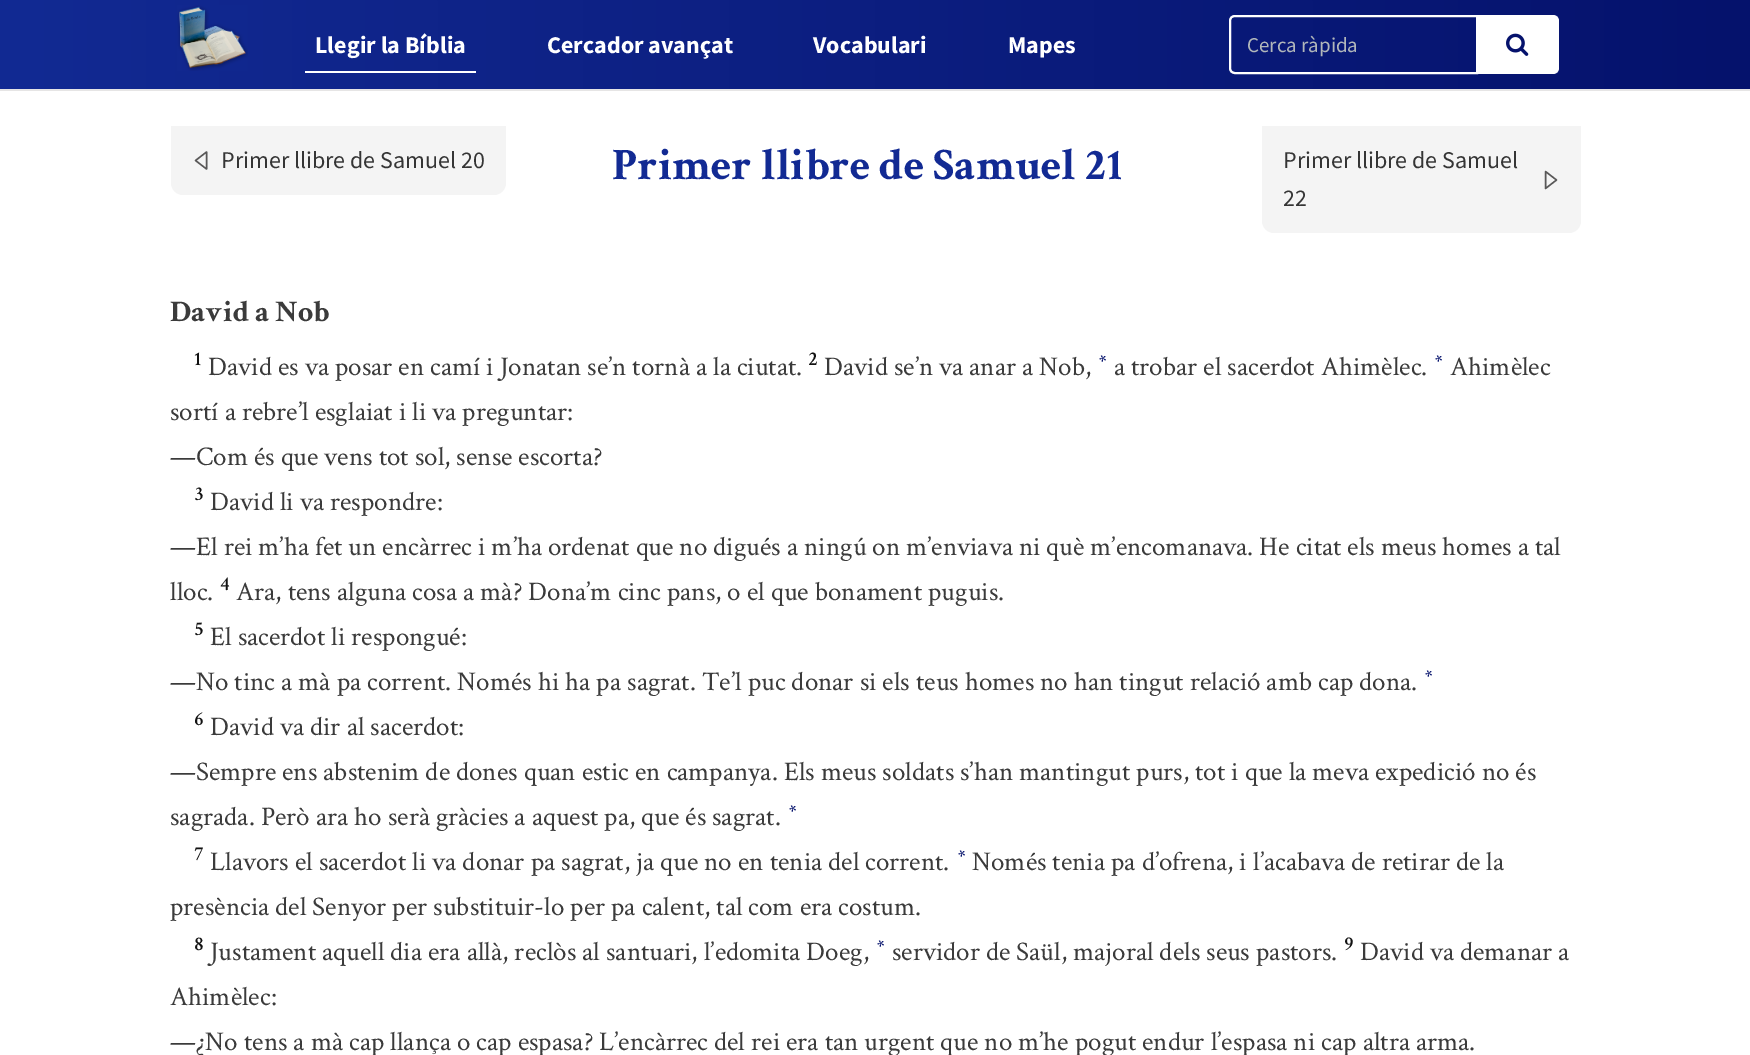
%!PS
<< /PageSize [1750 1055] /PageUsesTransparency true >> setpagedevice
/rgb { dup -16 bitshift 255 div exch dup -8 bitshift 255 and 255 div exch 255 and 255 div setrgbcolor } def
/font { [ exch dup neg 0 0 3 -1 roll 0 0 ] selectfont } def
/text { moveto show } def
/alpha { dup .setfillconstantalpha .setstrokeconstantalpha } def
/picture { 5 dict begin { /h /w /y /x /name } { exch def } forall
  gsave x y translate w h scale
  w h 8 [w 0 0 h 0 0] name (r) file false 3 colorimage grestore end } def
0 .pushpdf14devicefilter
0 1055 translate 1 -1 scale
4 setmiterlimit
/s1 { /SourceSansPro-Bold 24 font 16#FFFFFF rgb } def
/s2 { /SourceSansPro-Regular 21 font 16#B1B7BA rgb } def
/s3 { /SourceSansPro-Regular 24 font 16#353535 rgb } def
/s4 { /CrimsonText-Bold 45 font 16#122A93 rgb } def
/s5 { /CrimsonText-Bold 30 font 16#3B3B3B rgb } def
/s6 { /CrimsonText-SemiBold 20 font 16#121212 rgb } def
/s7 { /CrimsonText-Regular 27 font 16#3B3B3B rgb } def
/s8 { /CrimsonText-Bold 18 font 16#05126C rgb } def
16#FFFFFF rgb
0 0 1750 1055 rectfill
gsave 0 0 moveto 1750 0 lineto 1750 89 lineto 0 89 lineto closepath clip newpath
<< /ShadingType 2 /ColorSpace /DeviceRGB /Coords [0 44 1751 44] /Extend [true true] /Function << /FunctionType 2 /Domain [0 1] /C0 [0.071 0.165 0.576] /C1 [0.02 0.071 0.424] /N 1 >> >> shfill grestore
16#E6E5E5 rgb
0 89 1750 2 rectfill
(pic1.raw) 177 5 71 66 picture
16#FFFFFF rgb
305 71 171 2 rectfill
s1
(Llegir la Bíblia) 315 53 text
(Cercador avançat) 547 53 text
(Vocabulari) 813 53 text
(Mapes) 1008 53 text
0.07 alpha
16#000000 rgb
1234 18 moveto 1476 18 lineto 1476 17 lineto 1235 17 lineto 1232 17 1230 19 1230 22 curveto 1230 20 1232 18 1234 18 curveto closepath fill
1 alpha
16#FFFFFF rgb
2 setlinewidth
1235 16 moveto 1477 16 lineto 1477 73 lineto 1235 73 lineto 1232 73 1230 71 1230 68 curveto 1230 21 lineto 1230 18 1232 16 1235 16 curveto closepath stroke
s2
(Cerca ràpida) 1247 52 text
16#FFFFFF rgb
1476 15 moveto 1553 15 lineto 1556.5 15 1559 17.5 1559 21 curveto 1559 68 lineto 1559 71.5 1556.5 74 1553 74 curveto 1476 74 lineto closepath fill
(pic2.raw) 1506 33 23 23 picture
16#F4F4F4 rgb
171 126 moveto 506 126 lineto 506 183 lineto 506 189.5 500.5 195 494 195 curveto 183 195 lineto 176.5 195 171 189.5 171 183 curveto closepath fill
16#595858 rgb
1.4 setlinewidth
1 setlinecap
1 setlinejoin
206.5 152 moveto 206.5 169 lineto 195.5 160.5 lineto closepath stroke
s3
(Primer llibre de Samuel 20) 221 168 text
s4
(Primer llibre de Samuel 21) 612 179 text
16#F4F4F4 rgb
1262 126 moveto 1581 126 lineto 1581 221 lineto 1581 227.5 1575.5 233 1569 233 curveto 1274 233 lineto 1267.5 233 1262 227.5 1262 221 curveto closepath fill
s3
(Primer llibre de Samuel) 1283 168 text
16#595858 rgb
1545.5 188.5 moveto 1545.5 171.5 lineto 1556.5 180 lineto closepath stroke
s3
(22) 1283 206 text
s5
(David a Nob) 170 321 text
s6
(1) 194 365 text
(2) 808 365 text
s7
(David se’n va anar a Nob,) 824 375 text
s8
(*) 1099 367 text
s7
(a trobar el sacerdot Ahimèlec.) 1114 375 text
s8
(*) 1435 367 text
s7
(Ahimèlec) 1450 375 text
(sortí a rebre’l esglaiat i li va preguntar:) 170 420 text
(—Com és que vens tot sol, sense escorta?) 170 465 text
(David es va posar en camí i Jonatan se’n tornà a la ciutat.) 208 375 text
s6
(3) 194 500 text
s7
(David li va respondre:) 210 510 text
(—El rei m’ha fet un encàrrec i m’ha ordenat que no digués a ningú on m’enviava ni què m’encomanava. He citat els meus homes a tal) 170 555 text
(lloc.) 170 600 text
s6
(4) 220 590 text
s7
(Ara, tens alguna cosa a mà? Dona’m cinc pans, o el que bonament puguis.) 236 600 text
s6
(5) 194 635 text
s7
(El sacerdot li respongué:) 210 645 text
(—No tinc a mà pa corrent. Només hi ha pa sagrat. Te’l puc donar si els teus homes no han tingut relació amb cap dona.) 170 690 text
s8
(*) 1425 682 text
s6
(6) 194 725 text
s7
(David va dir al sacerdot:) 210 735 text
(—Sempre ens abstenim de dones quan estic en campanya. Els meus soldats s’han mantingut purs, tot i que la meva expedició no és) 170 780 text
(sagrada. Però ara ho serà gràcies a aquest pa, que és sagrat.) 170 825 text
s8
(*) 789 817 text
s6
(7) 194 860 text
s7
(Llavors el sacerdot li va donar pa sagrat, ja que no en tenia del corrent.) 210 870 text
s8
(*) 958 862 text
s7
(Només tenia pa d’ofrena, i l’acabava de retirar de la) 972 870 text
(presència del Senyor per substituir-lo per pa calent, tal com era costum.) 170 915 text
s6
(8) 194 950 text
s7
(Justament aquell dia era allà, reclòs al santuari, l’edomita Doeg,) 210 960 text
s8
(*) 877 952 text
s7
(servidor de Saül, majoral dels seus pastors.) 892 960 text
s6
(9) 1344 950 text
s7
(David va demanar a) 1360 960 text
(Ahimèlec:) 170 1005 text
(—¿No tens a mà cap llança o cap espasa? L’encàrrec del rei era tan urgent que no m’he pogut endur l’espasa ni cap altra arma.) 170 1050 text
.poppdf14devicefilter showpage
